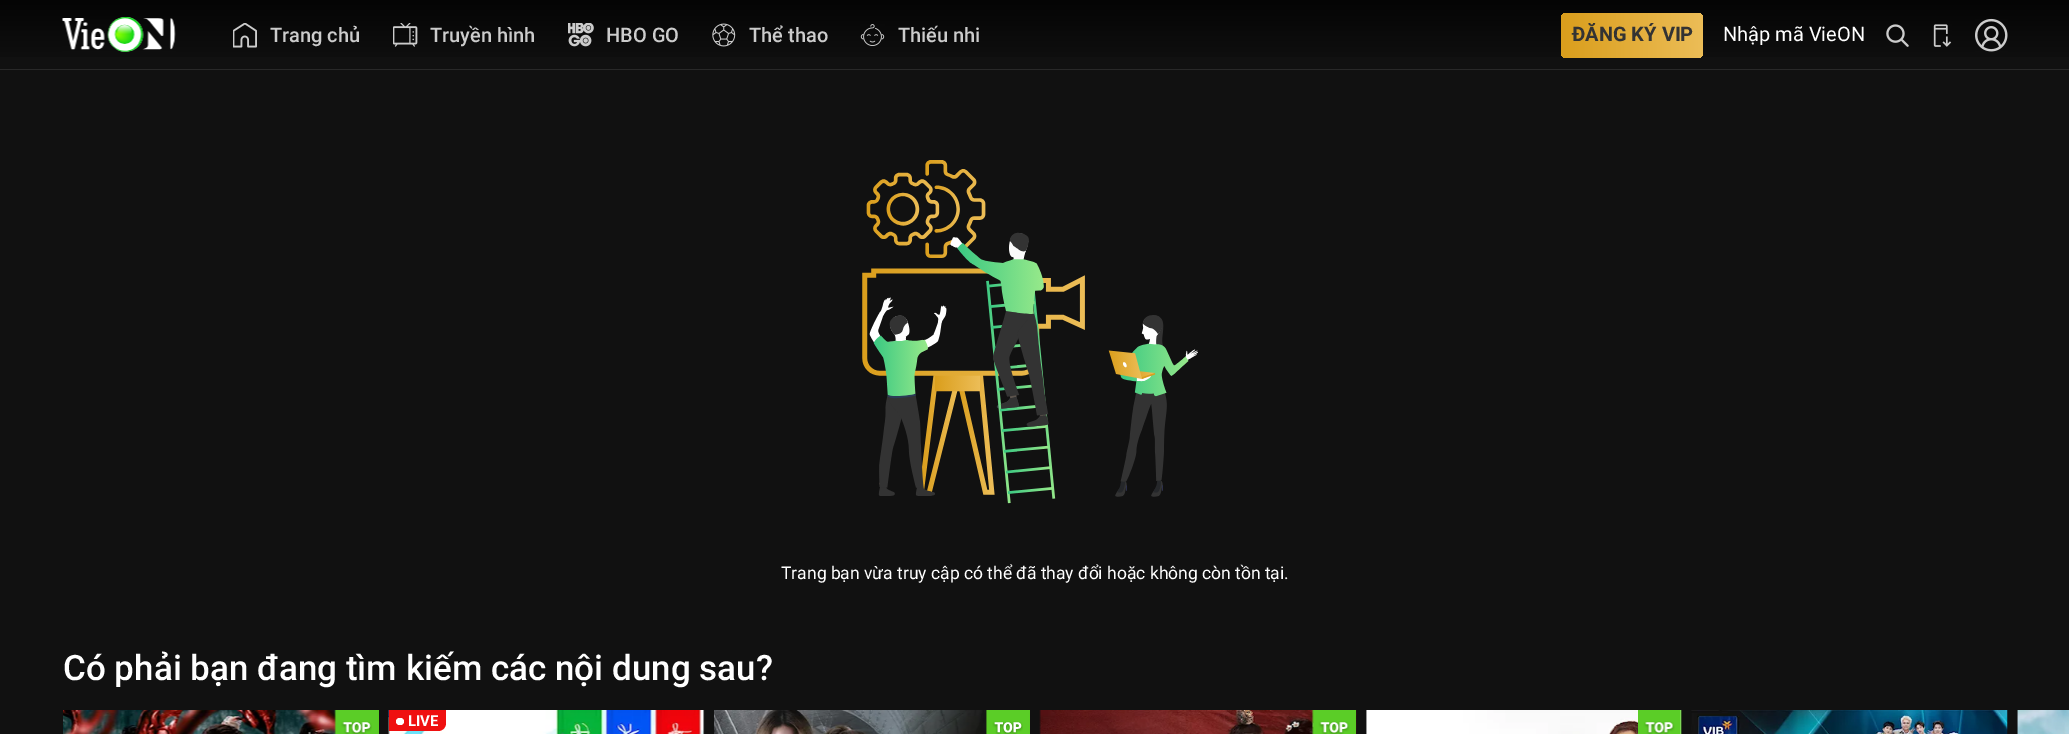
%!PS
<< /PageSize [2069 734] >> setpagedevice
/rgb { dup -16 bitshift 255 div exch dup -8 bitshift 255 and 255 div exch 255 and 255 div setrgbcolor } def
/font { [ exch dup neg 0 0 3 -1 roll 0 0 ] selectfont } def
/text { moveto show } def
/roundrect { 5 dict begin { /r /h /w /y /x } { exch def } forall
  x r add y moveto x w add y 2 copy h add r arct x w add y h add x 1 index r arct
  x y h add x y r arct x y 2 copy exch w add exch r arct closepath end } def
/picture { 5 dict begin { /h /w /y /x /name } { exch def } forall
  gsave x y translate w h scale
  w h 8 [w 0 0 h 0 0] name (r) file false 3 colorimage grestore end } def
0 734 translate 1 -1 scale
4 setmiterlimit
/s1 { /Roboto-Medium 20 font 16#CCCCCC rgb } def
/s2 { /Roboto-Bold 20 font 16#333333 rgb } def
/s3 { /Roboto-Regular 20 font 16#FFFFFF rgb } def
/s4 { /Roboto-Regular 17.5 font 16#FFFFFF rgb } def
/s5 { /Roboto-Medium 35 font 16#FFFFFF rgb } def
/s6 { /Roboto-Bold 15 font 16#FFFFFF rgb } def
16#111111 rgb
0 0 2069 734 rectfill
gsave 0 0 moveto 2069 0 lineto 2069 57 lineto 0 57 lineto closepath clip newpath
<< /ShadingType 2 /ColorSpace /DeviceRGB /Coords [1035 70 1035 0] /Extend [true true] /Function << /FunctionType 2 /Domain [0 1] /C0 [0.067 0.067 0.067] /C1 [0.016 0.016 0.016] /N 1 >> >> shfill grestore
16#292929 rgb
0 69 2069 1 rectfill
(pic1.raw) 62 17 114 35 picture
(pic2.raw) 233 23 24 25 picture
s1
(Trang chủ) 270 42 text
(pic3.raw) 393 23 25 24 picture
(Truyền hình) 430 42 text
(pic4.raw) 568 23 26 24 picture
(HBO GO) 606 42 text
(pic5.raw) 712 23 24 24 picture
(Thể thao) 749 42 text
(pic6.raw) 860 24 25 22 picture
(Thiếu nhi) 898 42 text
gsave 1561 13 142 45 5 roundrect clip newpath
<< /ShadingType 2 /ColorSpace /DeviceRGB /Coords [1561 35 1703 35] /Extend [true true] /Function << /FunctionType 2 /Domain [0 1] /C0 [0.855 0.62 0.11] /C1 [0.925 0.741 0.341] /N 1 >> >> shfill grestore
s2
(ĐĂNG KÝ VIP) 1572 41 text
s3
(Nhập mã VieON) 1723 41 text
(pic7.raw) 1886 24 23 23 picture
(pic8.raw) 1933 24 19 23 picture
(pic9.raw) 1975 18 33 34 picture
(pic10.raw) 862 160 336 344 picture
s4
(Trang bạn vừa truy cập có thể đã thay đổi hoặc không còn tồn tại.) 781 579 text
s5
(Có phải bạn đang tìm kiếm các nội dung sau?) 63 680 text
(pic11.raw) 63 710 273 24 picture
(pic12.raw) 334 710 45 24 picture
(pic13.raw) 388 710 317 24 picture
16#EF1010 rgb
389 710 moveto 446 710 lineto 446 723 lineto 446 727.5 442.5 731 438 731 curveto 389 731 lineto closepath fill
16#FFFFFF rgb
396 718 8 7 3.5 roundrect fill
s6
(LIVE) 408 726 text
(pic14.raw) 714 710 273 24 picture
(pic15.raw) 986 710 44 24 picture
(pic16.raw) 1039 710 318 24 picture
(pic17.raw) 1312 710 44 24 picture
(pic18.raw) 1366 710 316 24 picture
(pic19.raw) 1638 710 44 24 picture
(pic20.raw) 1691 710 317 24 picture
(pic21.raw) 2017 710 52 24 picture
showpage
